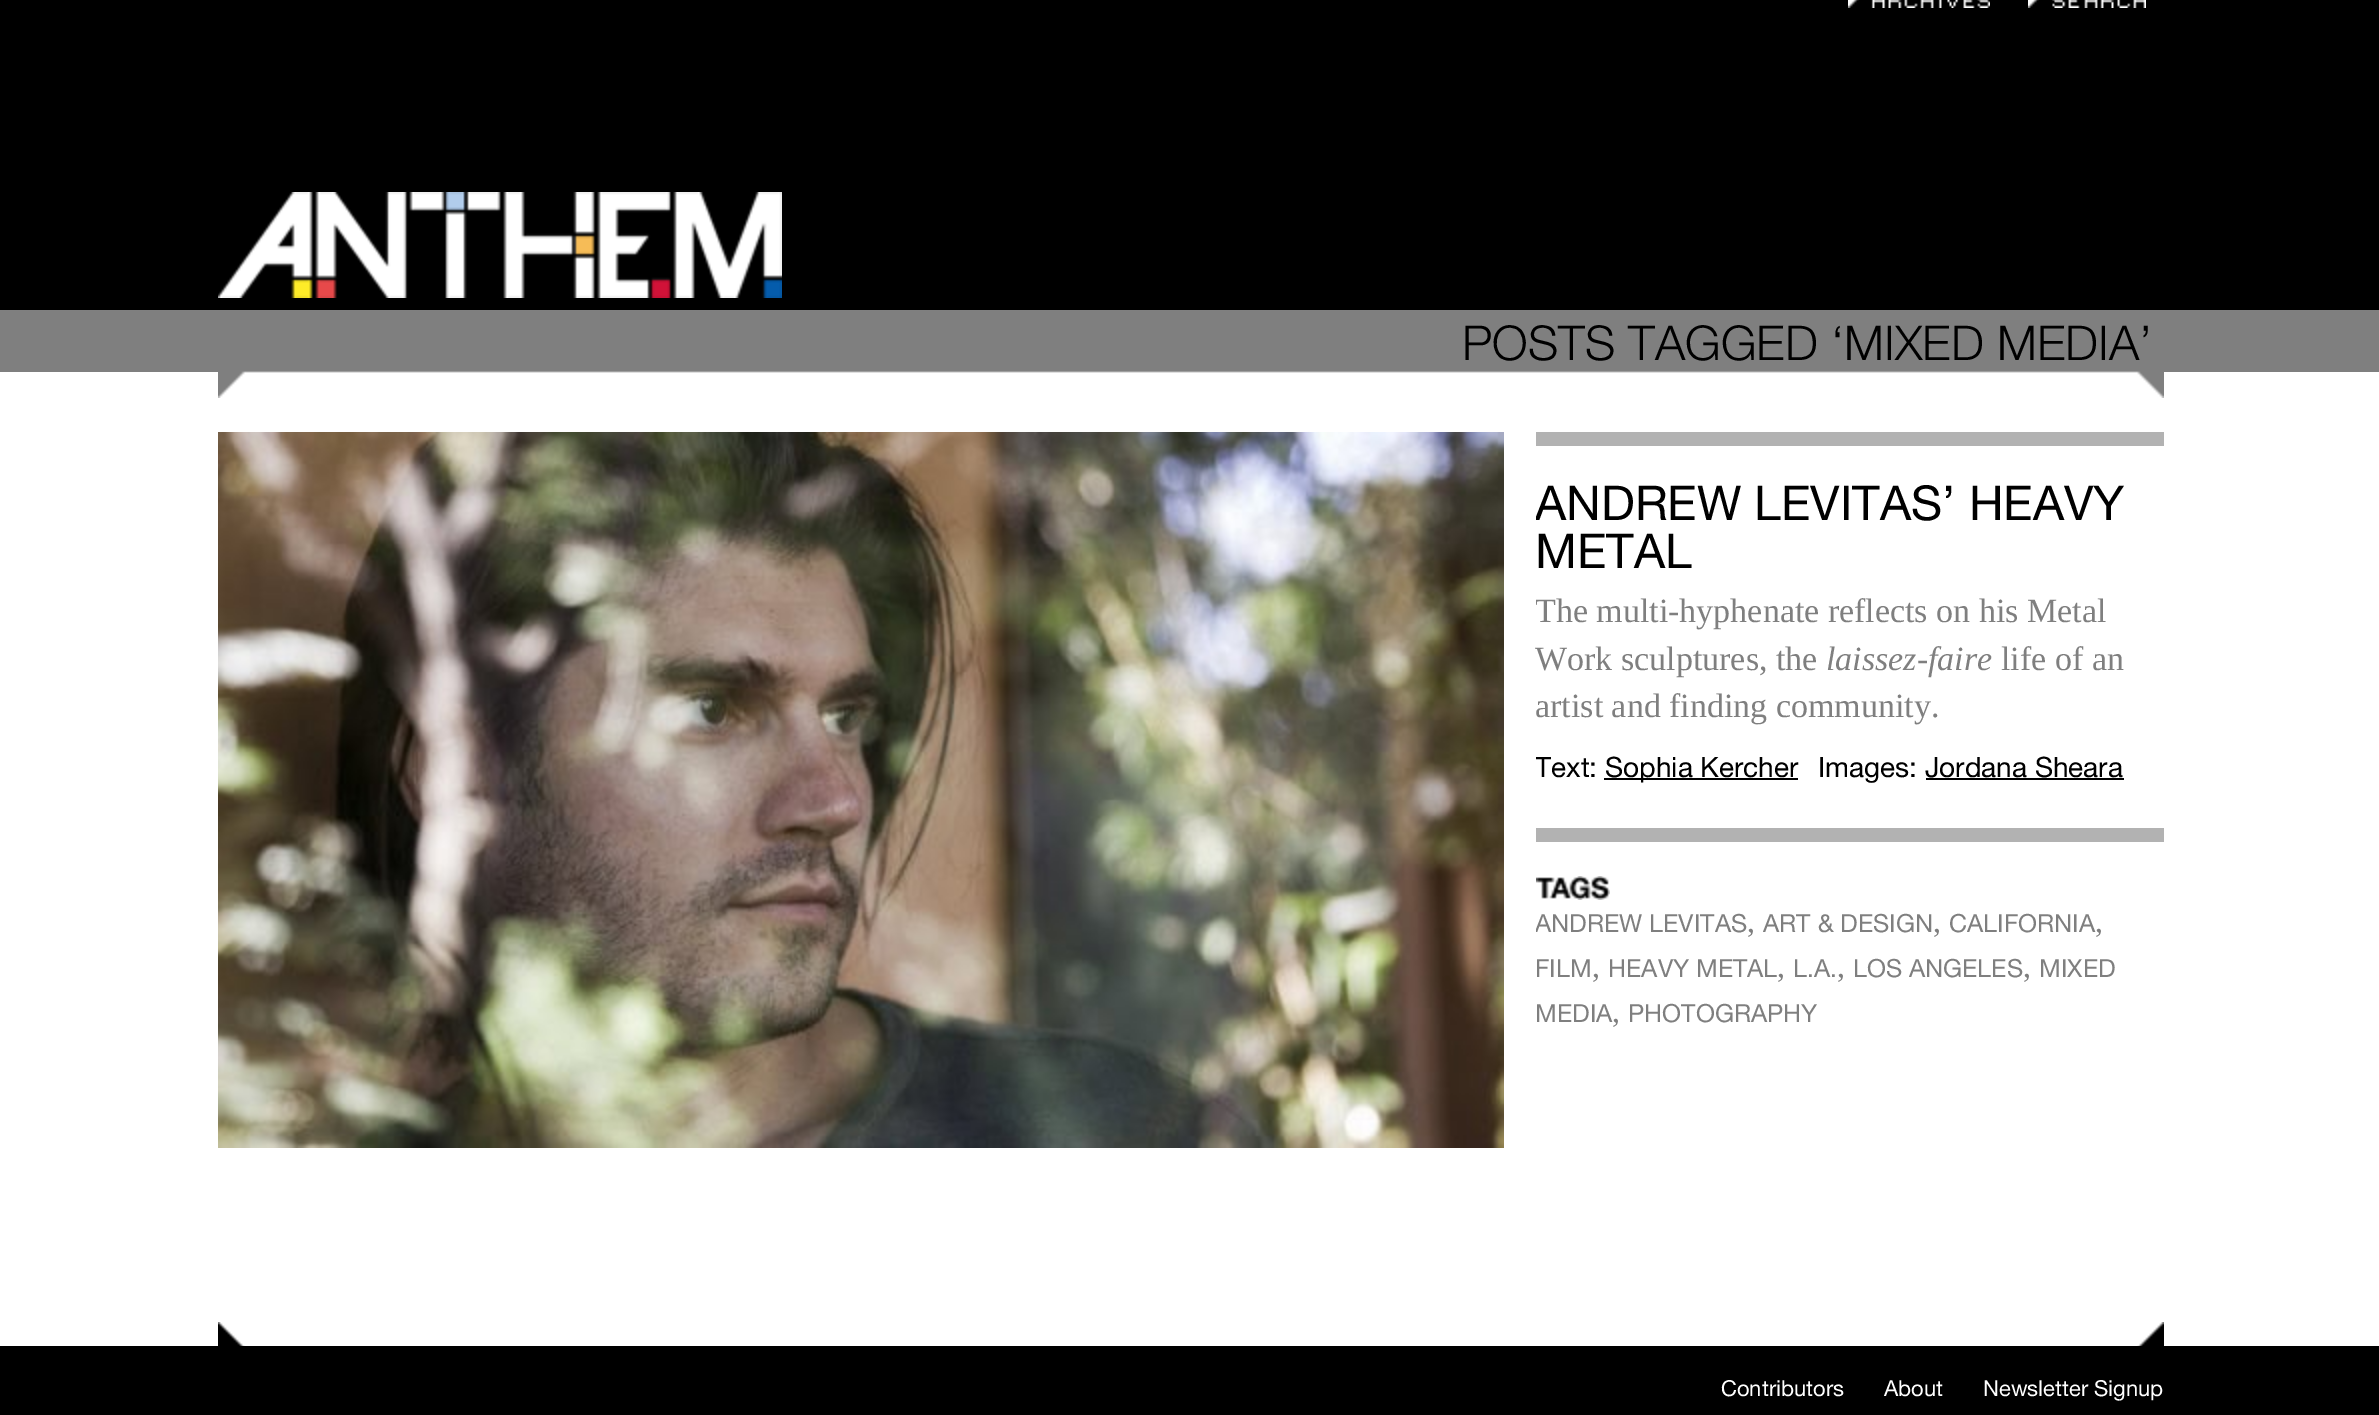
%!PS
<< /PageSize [2379 1415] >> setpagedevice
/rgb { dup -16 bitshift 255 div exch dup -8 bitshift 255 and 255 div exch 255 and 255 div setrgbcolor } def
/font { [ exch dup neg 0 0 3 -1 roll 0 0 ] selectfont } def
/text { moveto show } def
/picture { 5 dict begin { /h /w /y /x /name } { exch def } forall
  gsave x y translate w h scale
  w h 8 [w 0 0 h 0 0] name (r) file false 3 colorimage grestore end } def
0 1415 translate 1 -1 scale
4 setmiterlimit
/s1 { /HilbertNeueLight-Light 48 font 16#000000 rgb } def
/s2 { /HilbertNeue-Medium 48 font 16#000000 rgb } def
/s3 { /LiberationSerif-Regular 34 font 16#7F7F7F rgb } def
/s4 { /LiberationSerif-Italic 34 font 16#7F7F7F rgb } def
/s5 { /HilbertNeue-Medium 28 font 16#000000 rgb } def
/s6 { /HilbertNeue-Medium 25 font 16#7F7F7F rgb } def
/s7 { /LiberationSerif-Regular 32 font 16#7F7F7F rgb } def
/s8 { /HilbertNeue-Medium 22 font 16#FFFFFF rgb } def
16#FFFFFF rgb
0 0 2379 1415 rectfill
16#000000 rgb
0 0 2379 310 rectfill
(pic1.raw) 1848 0 142 8 picture
(pic2.raw) 2028 0 118 8 picture
(pic3.raw) 218 192 564 106 picture
16#7F7F7F rgb
0 310 2379 62 rectfill
(pic4.raw) 218 371 1946 27 picture
s1
(POSTS TAGGED ‘MIXED MEDIA’) 1462 360 text
(pic5.raw) 218 432 1286 716 picture
16#B2B2B2 rgb
1536 432 628 14 rectfill
gsave
1536 446 628 382 rectclip
s2
(ANDREW LEVITAS’ HEAVY) 1535 520 text
grestore
s2
(METAL) 1535 568 text
gsave
1536 446 628 382 rectclip
s3
(The multi-hyphenate reflects on his Metal) 1535 622 text
grestore
s3
(Work sculptures, the) 1535 670 text
s4
(laissez-faire) 1826 670 text
s3
(life of an) 2001 670 text
(artist and finding community.) 1535 717 text
gsave
1536 750 628 34 rectclip
s5
(Text:) 1535 777 text
grestore
16#000000 rgb
1604 778 194 2 rectfill
s5
(Sophia Kercher) 1605 777 text
(Images: Jordana Sheara) 1818 777 text
1926 778 198 2 rectfill
16#B2B2B2 rgb
1536 828 628 14 rectfill
(pic6.raw) 1536 876 74 24 picture
gsave
1536 842 628 236 rectclip
s6
(ANDREW LEVITAS) 1535 932 text
grestore
s7
(,) 1747 932 text
s6
(ART & DESIGN) 1763 932 text
s7
(,) 1933 932 text
s6
(CALIFORNIA) 1949 932 text
s7
(,) 2095 932 text
s6
(FILM) 1535 977 text
s7
(,) 1592 977 text
s6
(HEAVY METAL) 1608 977 text
s7
(,) 1777 977 text
s6
(L.A.) 1793 977 text
s7
(,) 1837 977 text
s6
(LOS ANGELES) 1853 977 text
s7
(,) 2023 977 text
s6
(MIXED) 2039 977 text
(MEDIA) 1535 1022 text
s7
(,) 1612 1022 text
s6
(PHOTOGRAPHY) 1628 1022 text
(pic7.raw) 218 1322 1946 24 picture
16#000000 rgb
0 1346 2379 69 rectfill
s8
(Contributors) 1721 1396 text
(About) 1884 1396 text
(Newsletter Signup) 1983 1396 text
showpage
